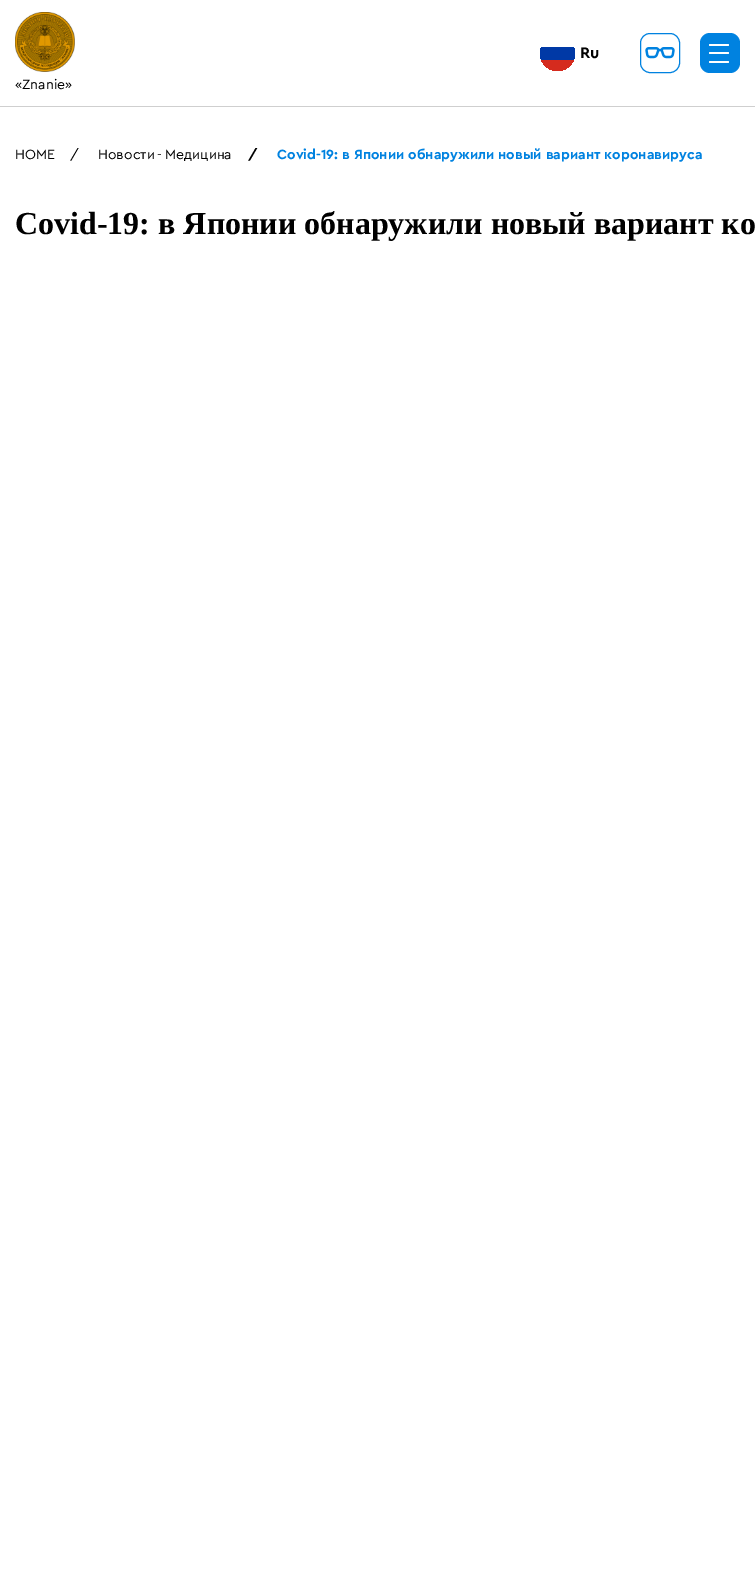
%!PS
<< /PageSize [755 1584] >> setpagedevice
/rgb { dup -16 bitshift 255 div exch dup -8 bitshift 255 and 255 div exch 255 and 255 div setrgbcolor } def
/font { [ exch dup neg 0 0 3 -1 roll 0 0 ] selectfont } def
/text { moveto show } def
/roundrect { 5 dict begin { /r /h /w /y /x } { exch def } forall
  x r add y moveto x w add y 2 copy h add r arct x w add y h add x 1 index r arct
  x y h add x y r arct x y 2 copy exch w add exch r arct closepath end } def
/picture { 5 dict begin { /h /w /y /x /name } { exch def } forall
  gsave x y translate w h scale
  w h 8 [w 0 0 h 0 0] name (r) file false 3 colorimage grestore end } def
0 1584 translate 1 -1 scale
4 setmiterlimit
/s1 { /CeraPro-Bold 16 font 16#000000 rgb } def
/s2 { /CeraPro-Regular 14 font 16#000000 rgb } def
/s3 { /CeraPro-Bold 14 font 16#000000 rgb } def
/s4 { /CeraPro-Bold 14 font 16#0082E0 rgb } def
/s5 { /LiberationSerif-Bold 32 font 16#000000 rgb } def
16#FFFFFF rgb
0 0 755 1584 rectfill
16#CFCFCF rgb
0 106 755 1 rectfill
gsave
540 36 35 35 17.5 roundrect clip newpath
16#0039A6 rgb
540 47 35 13 rectfill
16#D52B1E rgb
541 60 33 11 rectfill
grestore
s1
(Ru) 580 58 text
16#0082E0 rgb
640.5 33.5 39 39 9.5 roundrect stroke
(pic1.raw) 645 47 30 12 picture
700 33 40 40 10 roundrect fill
16#FFFFFF rgb
709 61 20 2 1 roundrect fill
709 44 20 2 1 roundrect fill
709 52 20 2 1 roundrect fill
(pic2.raw) 15 12 60 60 picture
s2
(«Znanie») 15 89 text
(HOME) 15 159 text
(/) 70 159 text
98 159 moveto -1 0 32 (Новости - Медицина) widthshow
s3
(/) 248 159 text
s4
(Covid-19: в Японии обнаружили новый вариант коронавируса) 277 159 text
s5
(Covid-19: в Японии обнаружили новый вариант ко) 15 234 text
showpage
